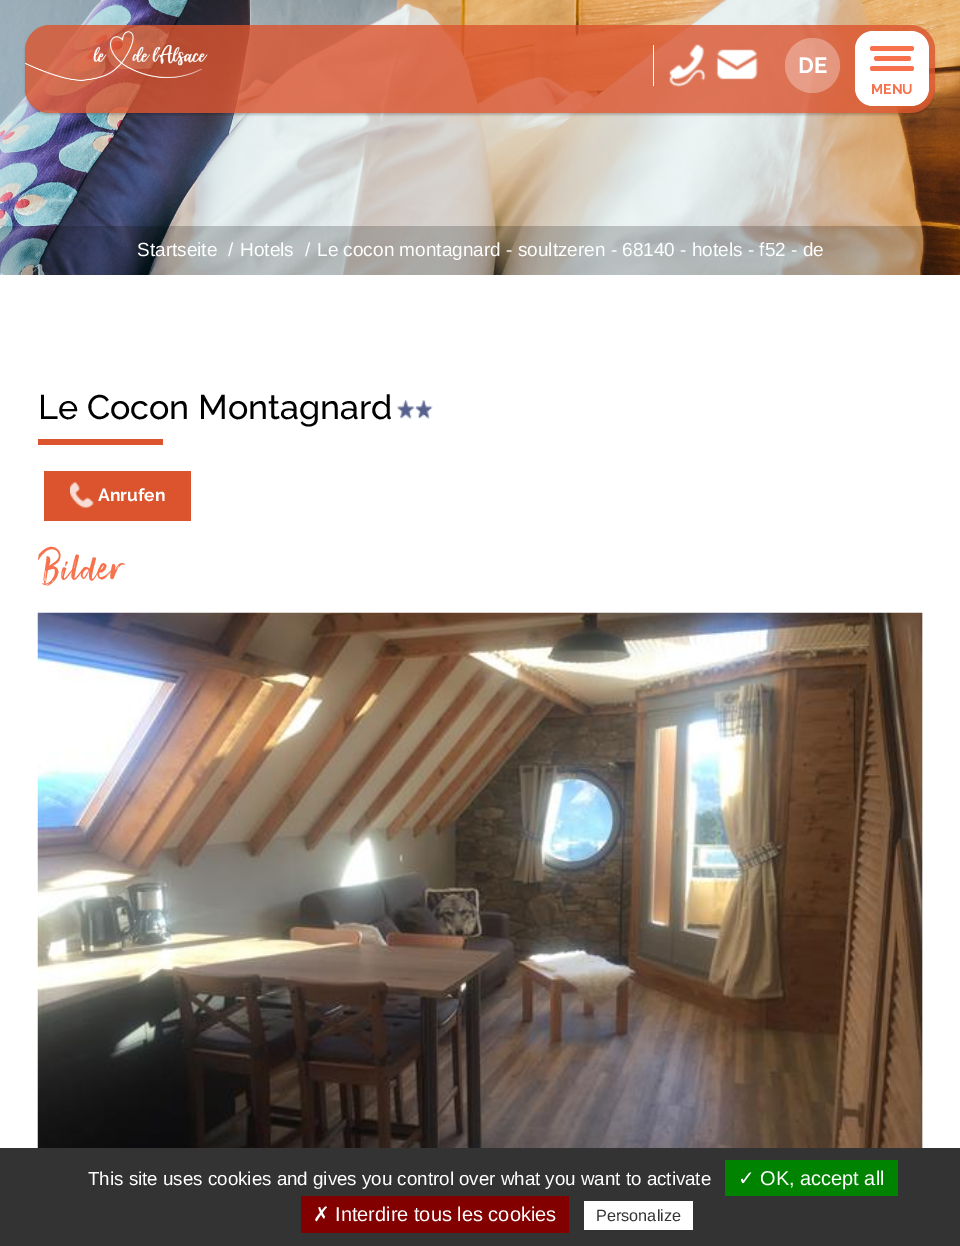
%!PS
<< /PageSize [960 1246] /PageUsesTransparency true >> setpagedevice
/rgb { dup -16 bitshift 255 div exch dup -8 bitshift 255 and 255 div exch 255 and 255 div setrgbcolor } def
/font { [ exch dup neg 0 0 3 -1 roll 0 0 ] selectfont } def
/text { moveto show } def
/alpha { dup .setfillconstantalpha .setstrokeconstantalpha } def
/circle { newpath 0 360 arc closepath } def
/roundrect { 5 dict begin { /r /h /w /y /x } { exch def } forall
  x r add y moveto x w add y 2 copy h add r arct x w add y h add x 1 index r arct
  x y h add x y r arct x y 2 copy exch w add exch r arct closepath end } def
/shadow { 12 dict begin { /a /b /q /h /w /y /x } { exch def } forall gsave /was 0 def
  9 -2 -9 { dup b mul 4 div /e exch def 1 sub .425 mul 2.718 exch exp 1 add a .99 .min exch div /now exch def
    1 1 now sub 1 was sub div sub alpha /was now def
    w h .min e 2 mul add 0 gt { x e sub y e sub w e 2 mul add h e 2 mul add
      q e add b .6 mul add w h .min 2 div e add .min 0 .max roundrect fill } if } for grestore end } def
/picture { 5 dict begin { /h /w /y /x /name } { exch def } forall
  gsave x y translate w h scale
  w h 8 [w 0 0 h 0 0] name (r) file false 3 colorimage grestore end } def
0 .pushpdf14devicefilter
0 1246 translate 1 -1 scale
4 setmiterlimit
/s1 { /Raleway-Bold 22 font 16#FFFFFF rgb } def
/s2 { /Raleway-Bold 14 font 16#F7714C rgb } def
/s3 { /LiberationSans-Regular 19 font 16#FFFFFF rgb } def
/s4 { /Raleway-Medium 34 font 16#000000 rgb } def
/s5 { /Raleway-Bold 17.5 font 16#FFFFFF rgb } def
/s6 { /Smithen-Regular 48 font 16#F7714C rgb } def
/s7 { /LiberationSans-Regular 18.75 font 16#FFFFFF rgb } def
/s8 { /DejaVuSans-Regular 20 font 16#FFFFFF rgb } def
/s9 { /LiberationSans-Regular 20 font 16#FFFFFF rgb } def
/s10 { /LiberationSans-Regular 16.25 font 16#333333 rgb } def
16#FFFFFF rgb
0 0 960 1246 rectfill
(pic4.raw) 0 0 960 275 picture
gsave
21 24 moveto 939 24 lineto 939 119 lineto 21 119 lineto closepath 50 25 moveto 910 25 lineto 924 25 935 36 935 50 curveto 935 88 lineto 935 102 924 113 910 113 curveto 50 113 lineto 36 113 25 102 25 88 curveto 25 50 lineto 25 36 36 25 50 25 curveto closepath eoclip newpath
16#000000 rgb
25 28 910 87 25 1 0.2 shadow
grestore
0.8 alpha
16#DB542E rgb
25 25 910 88 25 roundrect fill
1 alpha
(pic1.raw) 25 31 183 50 picture
16#FFFFFF rgb
653 45 1 41 rectfill
(pic2.raw) 669 44 37 43 picture
(pic3.raw) 716 49 42 31 picture
0.3 alpha
812.5 65.5 27.5 circle fill
1 alpha
s1
(DE) 798 73 text
855 31 74 75 18 roundrect fill
16#F7714C rgb
870 46 44 5 2.5 roundrect fill
874 56 37 5 2.5 roundrect fill
870 66 44 5 2.5 roundrect fill
s2
(MENU) 871 94 text
0.2 alpha
16#000000 rgb
0 226 960 49 5 roundrect fill
1 alpha
s3
(Startseite) 137 256 text
(/) 228 256 text
(Hotels) 240 256 text
(/) 305 256 text
(Le cocon montagnard - soultzeren - 68140 - hotels - f52 - de) 317 256 text
s4
(Le Cocon Montagnard) 38 419 text
(pic5.raw) 397 400 36 19 picture
16#DB542E rgb
38 439 125 6 rectfill
44 471 147 50 rectfill
(pic6.raw) 70 482 24 26 picture
s5
(Anrufen) 98 501 text
s6
(Bilder) 38 579 text
16#EDF0F1 rgb
922 613 1 535 rectfill
(pic7.raw) 37 612 886 536 picture
16#333333 rgb
0 1148 960 98 rectfill
s7
(This site uses cookies and gives you control over what you want to activate) 88 1185 text
16#008300 rgb
725 1160 173 36 rectfill
s8
(✓) 738 1185 text
s9
(OK, accept all) 760 1185 text
16#830000 rgb
301 1196 268 37 rectfill
s8
(✗) 313 1221 text
s9
(Interdire tous les cookies) 335 1221 text
584 1201 109 29 rectfill
s10
(Personalize) 596 1221 text
.poppdf14devicefilter showpage
